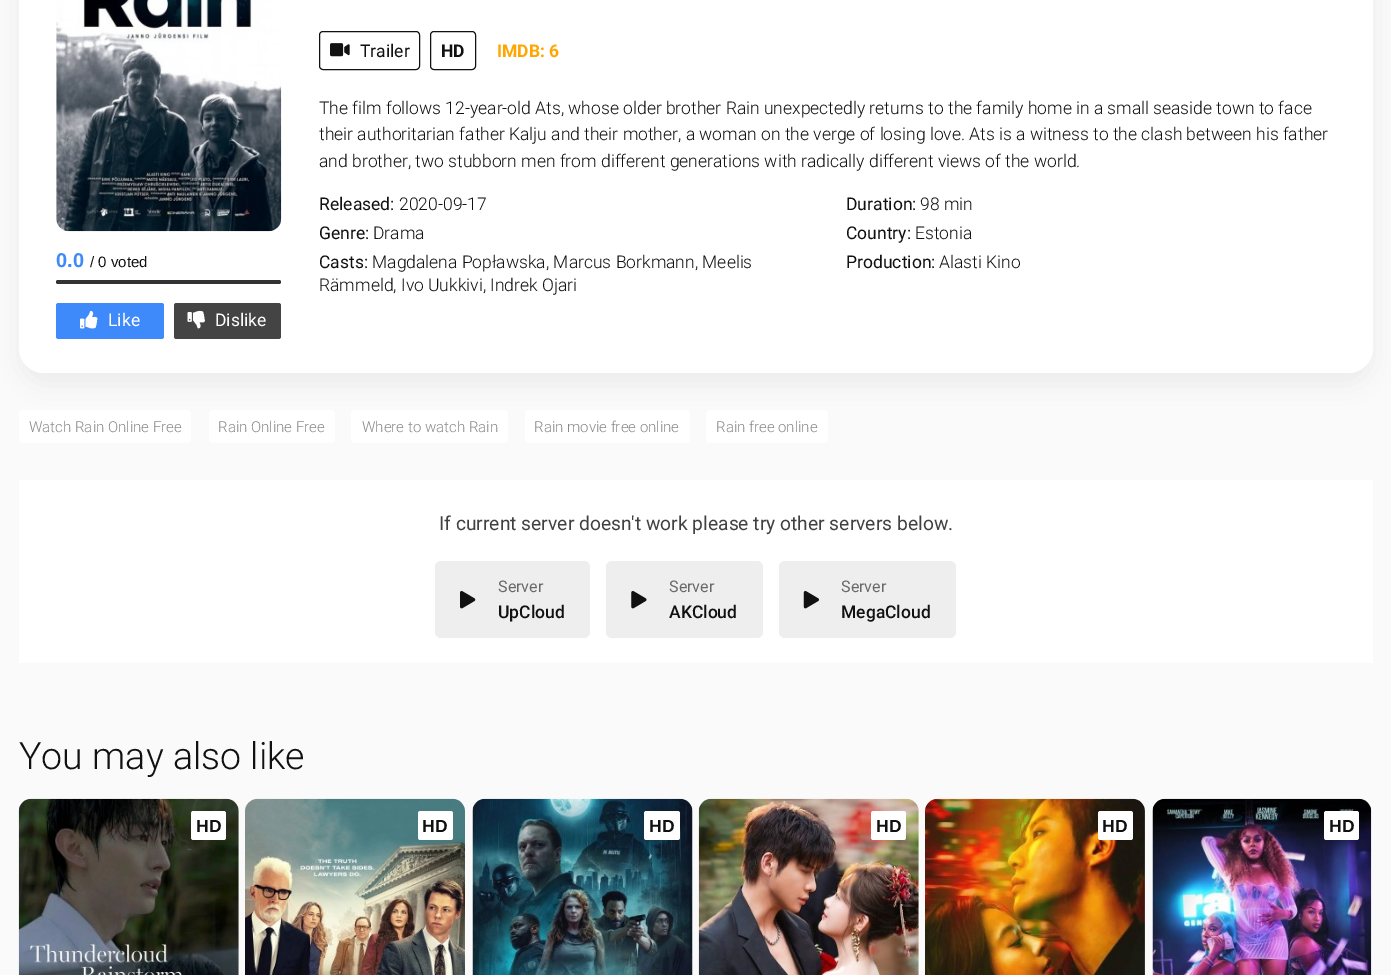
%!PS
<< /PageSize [1391 975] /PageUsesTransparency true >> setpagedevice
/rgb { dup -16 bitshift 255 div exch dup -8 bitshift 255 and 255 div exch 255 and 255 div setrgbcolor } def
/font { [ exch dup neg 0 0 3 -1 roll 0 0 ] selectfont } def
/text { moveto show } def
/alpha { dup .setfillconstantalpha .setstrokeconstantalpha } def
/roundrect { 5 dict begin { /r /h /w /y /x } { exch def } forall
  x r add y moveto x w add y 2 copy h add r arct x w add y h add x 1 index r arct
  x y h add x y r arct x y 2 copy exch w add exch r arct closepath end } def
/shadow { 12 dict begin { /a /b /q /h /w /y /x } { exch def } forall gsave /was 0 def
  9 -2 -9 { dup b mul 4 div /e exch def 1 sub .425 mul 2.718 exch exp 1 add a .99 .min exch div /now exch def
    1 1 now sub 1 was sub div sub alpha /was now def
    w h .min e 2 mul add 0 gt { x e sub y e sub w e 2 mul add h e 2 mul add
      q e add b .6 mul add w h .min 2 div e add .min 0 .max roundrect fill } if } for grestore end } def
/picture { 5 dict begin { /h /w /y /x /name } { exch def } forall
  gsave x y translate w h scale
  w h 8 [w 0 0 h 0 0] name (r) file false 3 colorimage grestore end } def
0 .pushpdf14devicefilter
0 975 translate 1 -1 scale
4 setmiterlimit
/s1 { /LiberationSans-Bold 20 font 16#3E8AFA rgb } def
/s2 { /LiberationSans-Regular 15 font 16#111111 rgb } def
/s3 { /Roboto-Regular 17.5 font 16#FFFFFF rgb } def
/s4 { /Roboto-Regular 17.5 font 16#111111 rgb } def
/s5 { /Roboto-Bold 17.5 font 16#111111 rgb } def
/s6 { /Roboto-Bold 17.5 font 16#FFA600 rgb } def
/s7 { /Roboto-Light 17.5 font 16#111111 rgb } def
/s8 { /Roboto-Light 15 font 16#888888 rgb } def
/s9 { /Roboto-Regular 19.25 font 16#414141 rgb } def
/s10 { /Roboto-Regular 16 font 16#696969 rgb } def
/s11 { /Roboto-Medium 17.5 font 16#111111 rgb } def
/s12 { /Roboto-Light 37.5 font 16#111111 rgb } def
/s13 { /LiberationSans-Bold 17.5 font 16#111111 rgb } def
16#FAFAFA rgb
0 0 1391 975 rectfill
16#FFFFFF rgb
19 410 172 33 4 roundrect fill
209 410 126 33 4 roundrect fill
351 410 157 33 4 roundrect fill
525 410 165 33 4 roundrect fill
706 410 122 33 4 roundrect fill
16#000000 rgb
19 -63 1354 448 25 12.5 0.05 shadow
16#FFFFFF rgb
19 -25 1354 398 25 roundrect fill
(pic1.raw) 56 0 226 232 picture
s1
(0.0) 56 267 text
s2
(/ 0 voted) 90 267 text
16#333333 rgb
56 280 225 4 2 roundrect fill
16#3E8AFA rgb
56 303 108 36 2.5 roundrect fill
(pic2.raw) 80 310 18 19 picture
s3
(Like) 108 326 text
16#444444 rgb
174 303 107 36 2.5 roundrect fill
(pic3.raw) 187 310 18 19 picture
s3
(Dislike) 215 326 text
16#111111 rgb
319.5 31.5 100 38 3.5 roundrect stroke
(pic4.raw) 330 43 20 14 picture
(Trailer) 360 57 text
430.5 31.5 45 38 3.5 roundrect stroke
s5
(HD) 441 57 text
s6
(IMDB: 6) 497 57 text
s7
(The film follows 12-year-old Ats, whose older brother Rain unexpectedly returns to the family home in a small seaside town to face) 319 114 text
(their authoritarian father Kalju and their mother, a woman on the verge of losing love. Ats is a witness to the clash between his father) 319 140 text
(and brother, two stubborn men from different generations with radically different views of the world.) 319 167 text
s4
(Released:) 319 210 text
s7
(2020-09-17) 399 210 text
s4
(Genre:) 319 239 text
s7
(Drama) 373 239 text
s4
(Casts:) 319 268 text
s7
(Magdalena Popławska, Marcus Borkmann, Meelis) 372 268 text
(Rämmeld, Ivo Uukkivi, Indrek Ojari) 319 291 text
s4
(Duration:) 846 210 text
s7
(98 min) 920 210 text
s4
(Country:) 846 239 text
s7
(Estonia) 915 239 text
s4
(Production:) 846 268 text
s7
(Alasti Kino) 939 268 text
s8
(Watch Rain Online Free) 29 432 text
(Rain Online Free) 218 432 text
(Where to watch Rain) 362 432 text
(Rain movie free online) 534 432 text
(Rain free online) 716 432 text
16#FFFFFF rgb
19 480 1354 183 rectfill
s9
(If current server doesn't work please try other servers below.) 439 530 text
16#EEEEEE rgb
435 561 155 77 6 roundrect fill
(pic5.raw) 460 591 16 18 picture
s10
(Server) 498 592 text
s11
(UpCloud) 498 618 text
16#EEEEEE rgb
606 561 157 77 6 roundrect fill
(pic6.raw) 631 591 16 18 picture
s10
(Server) 669 592 text
s11
(AKCloud) 669 618 text
16#EEEEEE rgb
779 561 177 77 6 roundrect fill
(pic7.raw) 803 591 16 18 picture
s10
(Server) 841 592 text
s11
(MegaCloud) 841 618 text
s12
(You may also like) 19 769 text
(pic8.raw) 18 798 221 177 picture
16#FFFFFF rgb
191 811 35 29 2.5 roundrect fill
s13
(HD) 196 832 text
(pic9.raw) 245 798 220 177 picture
16#FFFFFF rgb
418 811 35 29 2.5 roundrect fill
s13
(HD) 422 832 text
(pic10.raw) 472 798 221 177 picture
16#FFFFFF rgb
644 811 36 29 2.5 roundrect fill
s13
(HD) 649 832 text
(pic11.raw) 698 798 221 177 picture
16#FFFFFF rgb
871 811 35 29 2.5 roundrect fill
s13
(HD) 876 832 text
(pic12.raw) 925 798 220 177 picture
16#FFFFFF rgb
1098 811 35 29 2.5 roundrect fill
s13
(HD) 1102 832 text
(pic13.raw) 1152 798 220 177 picture
16#FFFFFF rgb
1324 811 35 29 2.5 roundrect fill
s13
(HD) 1329 832 text
.poppdf14devicefilter showpage
